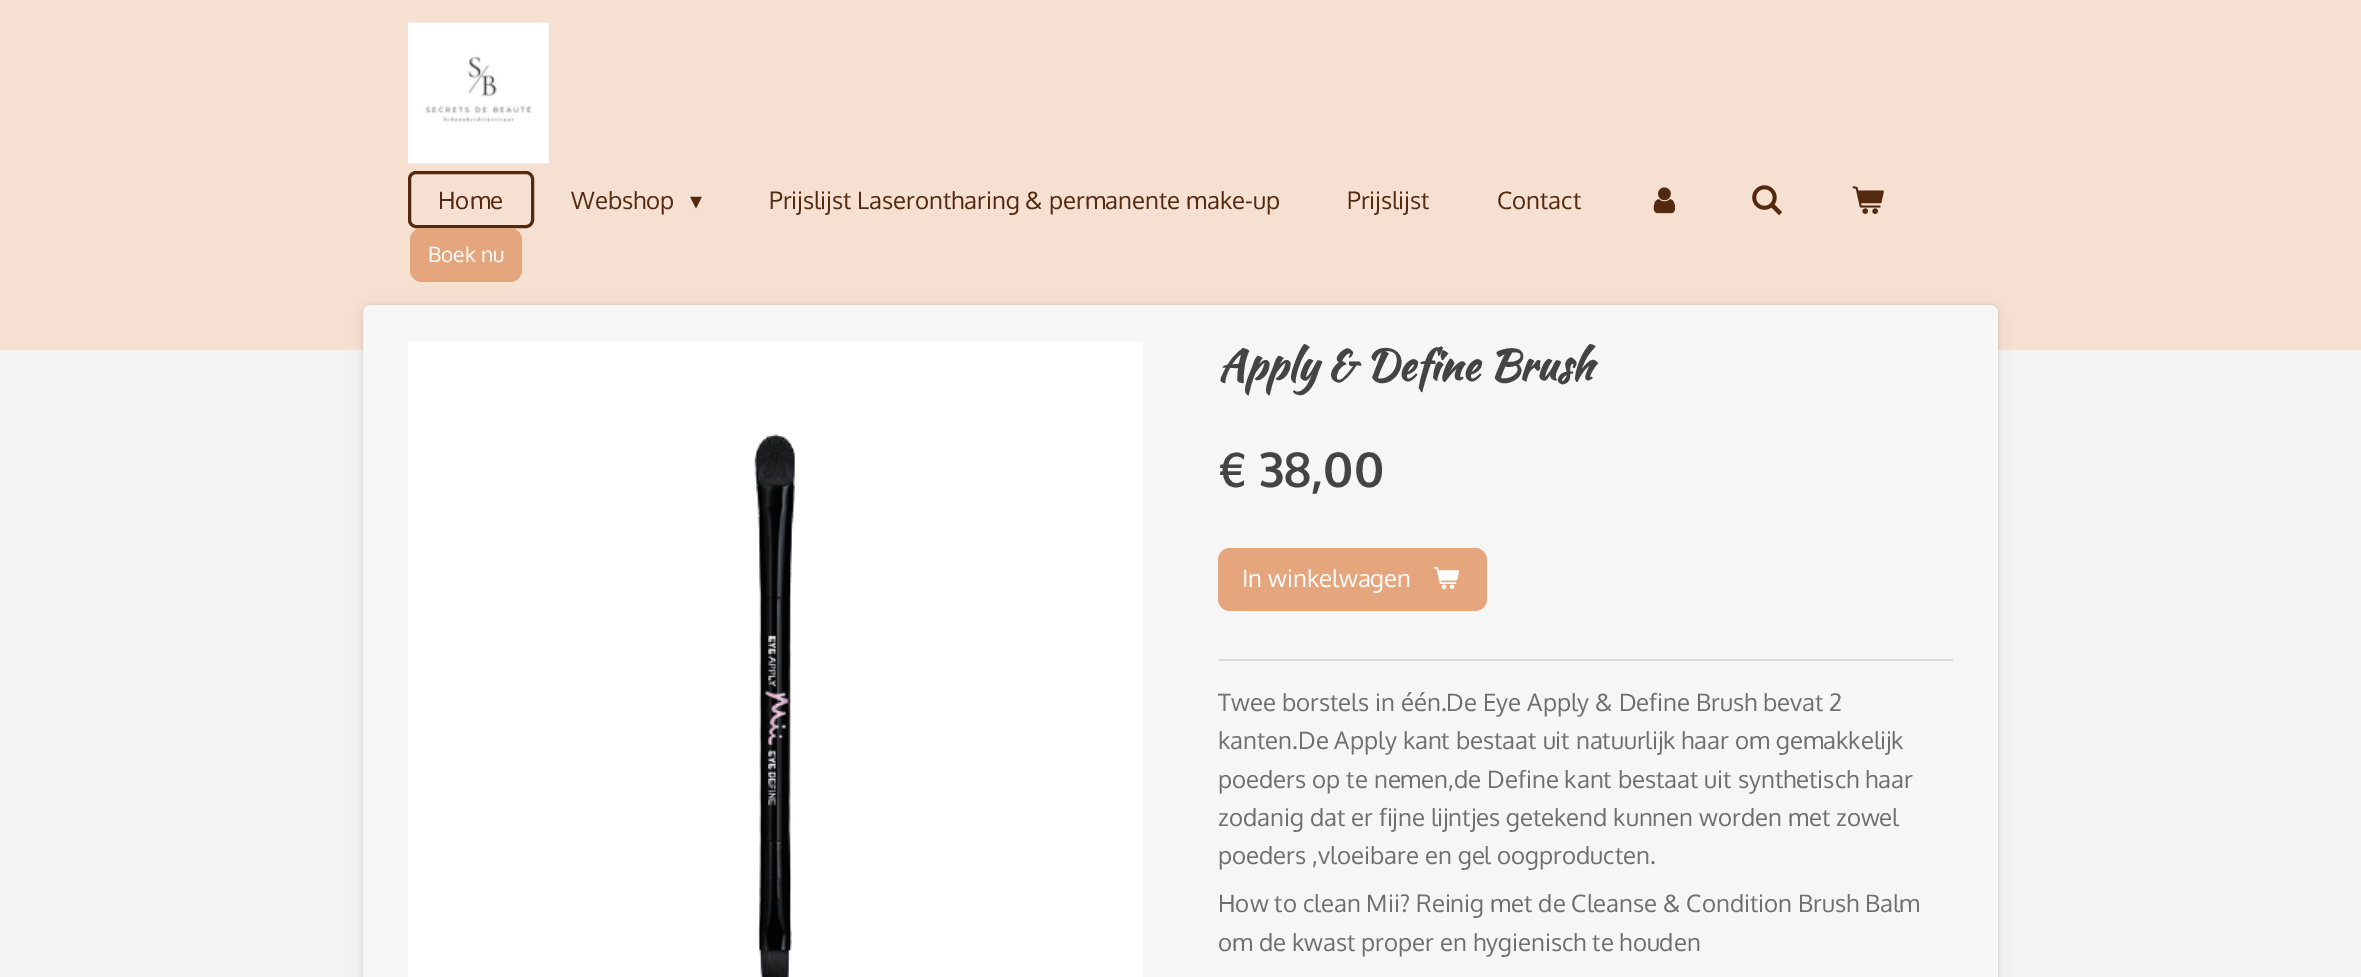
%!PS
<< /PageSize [2361 977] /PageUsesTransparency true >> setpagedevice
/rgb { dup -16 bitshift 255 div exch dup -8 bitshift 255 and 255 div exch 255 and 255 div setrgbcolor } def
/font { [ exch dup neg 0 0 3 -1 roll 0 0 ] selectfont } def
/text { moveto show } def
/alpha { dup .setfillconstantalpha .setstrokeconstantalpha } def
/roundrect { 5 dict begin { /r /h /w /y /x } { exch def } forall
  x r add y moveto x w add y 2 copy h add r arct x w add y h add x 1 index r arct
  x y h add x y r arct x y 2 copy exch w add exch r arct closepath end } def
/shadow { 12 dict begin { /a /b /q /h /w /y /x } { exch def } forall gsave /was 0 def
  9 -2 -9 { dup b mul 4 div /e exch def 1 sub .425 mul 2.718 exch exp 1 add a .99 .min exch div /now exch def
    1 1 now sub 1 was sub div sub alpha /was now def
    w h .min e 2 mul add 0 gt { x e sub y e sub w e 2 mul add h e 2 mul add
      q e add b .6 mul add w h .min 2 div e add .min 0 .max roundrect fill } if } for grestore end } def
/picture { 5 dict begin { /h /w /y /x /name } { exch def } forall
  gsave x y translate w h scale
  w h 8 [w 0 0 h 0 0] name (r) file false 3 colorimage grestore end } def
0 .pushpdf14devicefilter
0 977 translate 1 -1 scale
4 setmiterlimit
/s1 { /Oxygen-Regular 24 font 16#532A10 rgb } def
/s2 { /DejaVuSans-Regular 24 font 16#532A10 rgb } def
/s3 { /Oxygen-Regular 21 font 16#FFFFFF rgb } def
/s4 { /KaushanScript-Bold 42 font 16#444444 rgb } def
/s5 { /Oxygen-Bold 48 font 16#444444 rgb } def
/s6 { /Oxygen-Regular 24 font 16#FFFFFF rgb } def
/s7 { /Oxygen-Regular 24 font 16#6F6F6F rgb } def
16#F4F3F3 rgb
0 0 2361 977 rectfill
16#F6E0D2 rgb
0 0 2361 350 rectfill
(pic1.raw) 408 22 141 142 picture
16#532A10 rgb
3 setlinewidth
409.5 172.5 123 54 6.5 roundrect stroke
s1
(Home) 438 209 text
(Webshop) 571 209 text
s2
(▾) 690 209 text
s1
(Prijslijst Laserontharing & permanente make-up) 769 209 text
(Prijslijst) 1347 209 text
(Contact) 1497 209 text
(pic2.raw) 1653 187 23 27 picture
(pic3.raw) 1752 185 31 31 picture
(pic4.raw) 1852 186 32 28 picture
16#E5A57D rgb
410 228 112 54 12 roundrect fill
s3
(Boek nu) 428 262 text
16#000000 rgb
363 305 1635 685 8 1.5 0.1 shadow
363 308 1635 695 8 6 0.07 shadow
16#F6F6F6 rgb
363 305 1635 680 8 roundrect fill
(pic5.raw) 408 342 735 635 picture
s4
(Apply & Define Brush) 1218 380 text
s5
(€ 38,00) 1218 487 text
16#E5A57D rgb
1218 548 269 63 12 roundrect fill
s6
(In winkelwagen) 1242 587 text
(pic6.raw) 1434 566 25 24 picture
16#DBDBDB rgb
1218 659 735 2 rectfill
s7
(Twee borstels in één.De Eye Apply & Define Brush bevat 2) 1218 711 text
(kanten.De Apply kant bestaat uit natuurlijk haar om gemakkelijk) 1218 749 text
(poeders op te nemen,de Define kant bestaat uit synthetisch haar) 1218 788 text
(zodanig dat er fijne lijntjes getekend kunnen worden met zowel) 1218 826 text
(poeders ,vloeibare en gel oogproducten.) 1218 864 text
(How to clean Mii? Reinig met de Cleanse & Condition Brush Balm) 1218 912 text
(om de kwast proper en hygienisch te houden) 1218 951 text
.poppdf14devicefilter showpage
